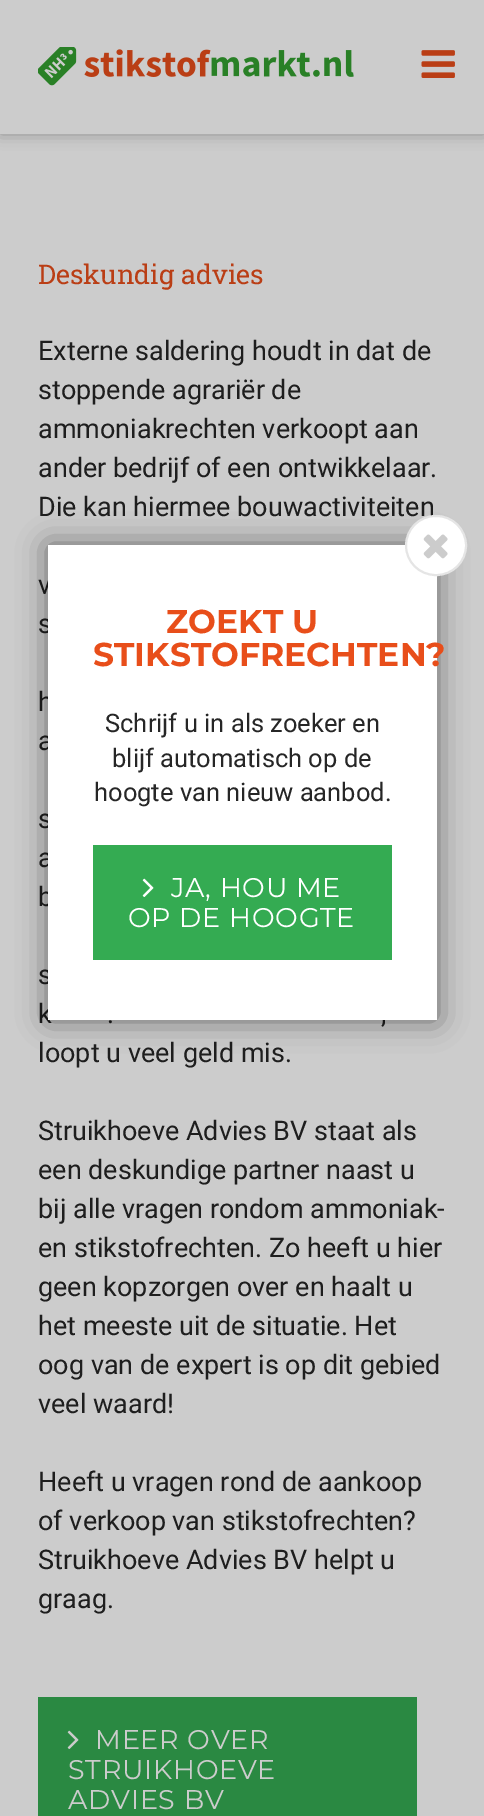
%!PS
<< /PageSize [484 1816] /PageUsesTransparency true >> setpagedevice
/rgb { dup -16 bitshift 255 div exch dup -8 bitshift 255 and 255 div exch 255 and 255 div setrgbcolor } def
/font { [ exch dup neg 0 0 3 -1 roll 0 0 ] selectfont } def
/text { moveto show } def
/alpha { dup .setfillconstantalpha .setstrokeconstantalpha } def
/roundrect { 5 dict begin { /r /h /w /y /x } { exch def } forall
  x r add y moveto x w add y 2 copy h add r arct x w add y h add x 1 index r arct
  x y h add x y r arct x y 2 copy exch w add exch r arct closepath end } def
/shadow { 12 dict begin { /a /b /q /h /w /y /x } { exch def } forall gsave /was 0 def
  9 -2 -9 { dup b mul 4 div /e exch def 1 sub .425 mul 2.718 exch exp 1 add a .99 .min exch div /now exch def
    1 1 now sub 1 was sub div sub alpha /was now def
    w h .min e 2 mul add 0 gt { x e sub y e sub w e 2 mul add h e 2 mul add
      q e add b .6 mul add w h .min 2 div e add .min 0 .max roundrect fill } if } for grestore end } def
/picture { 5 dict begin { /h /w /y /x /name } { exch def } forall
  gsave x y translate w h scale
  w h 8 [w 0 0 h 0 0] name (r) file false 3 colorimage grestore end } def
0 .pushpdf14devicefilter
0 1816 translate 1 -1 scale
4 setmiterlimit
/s1 { /RobotoSlab-Regular 27 font 16#BA3E15 rgb } def
/s2 { /Roboto-Regular 27 font 16#1E1E1E rgb } def
/s3 { /Montserrat-Bold 33 font 16#E84E1A rgb } def
/s4 { /Roboto-Regular 25.5 font 16#262626 rgb } def
16#CCCCCC rgb
0 0 484 1816 rectfill
16#000000 rgb
0 0 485 134 0 7.5 0.3 shadow
16#CCCCCC rgb
0 0 484 134 rectfill
(pic1.raw) 38 47 316 39 picture
(pic2.raw) 421 50 34 28 picture
s1
(Deskundig advies) 38 284 text
s2
(Externe saldering houdt in dat de) 38 360 text
(stoppende agrariër de) 38 399 text
(ammoniakrechten verkoopt aan) 38 438 text
(ander bedrijf of een ontwikkelaar.) 38 477 text
(Die kan hiermee bouwactiviteiten) 38 516 text
(v) 38 594 text
(s) 38 633 text
(h) 38 711 text
(a) 38 750 text
(s) 38 828 text
(a) 38 867 text
(b) 38 906 text
(s) 38 984 text
(k) 38 1023 text
(.) 107 1023 text
(,) 381 1023 text
(loopt u veel geld mis.) 38 1062 text
(Struikhoeve Advies BV staat als) 38 1140 text
(een deskundige partner naast u) 38 1179 text
(bij alle vragen rondom ammoniak-) 38 1218 text
(en stikstofrechten. Zo heeft u hier) 38 1257 text
(geen kopzorgen over en haalt u) 38 1296 text
(het meeste uit de situatie. Het) 38 1335 text
(oog van de expert is op dit gebied) 38 1374 text
(veel waard!) 38 1413 text
(Heeft u vragen rond de aankoop) 38 1491 text
(of verkoop van stikstofrechten?) 38 1530 text
(Struikhoeve Advies BV helpt u) 38 1569 text
(graag.) 38 1608 text
16#2A8942 rgb
38 1697 379 119 rectfill
(pic3.raw) 67 1730 12 19 picture
/Montserrat-Regular 27 font
16#CCCCCC rgb
95 1749 moveto 0.75 0 (MEER OVER) ashow
68 1779 moveto 0.75 0 (STRUIKHOEVE) ashow
68 1809 moveto 0.75 0 (ADVIES BV) ashow
16#000000 rgb
48 545 389 475 0 15 0.5 shadow
16#FFFFFF rgb
48 545 389 475 rectfill
406 516 60 59 29.5 roundrect gsave fill grestore
16#E5E5E5 rgb
2 setlinewidth
stroke
(pic4.raw) 423 534 25 25 picture
s3
(ZOEKT U) 166 633 text
(STIKSTOFRECHTEN?) 93 666 text
s4
(Schrijf u in als zoeker en) 105 732 text
(blijf automatisch op de) 112 767 text
(hoogte van nieuw aanbod.) 94 801 text
16#34AB52 rgb
93 845 299 115 rectfill
(pic5.raw) 142 878 12 19 picture
/Montserrat-Regular 27 font
16#FFFFFF rgb
171 897 moveto 0.75 0 (JA, HOU ME) ashow
128 927 moveto 0.75 0 (OP DE HOOGTE) ashow
.poppdf14devicefilter showpage
